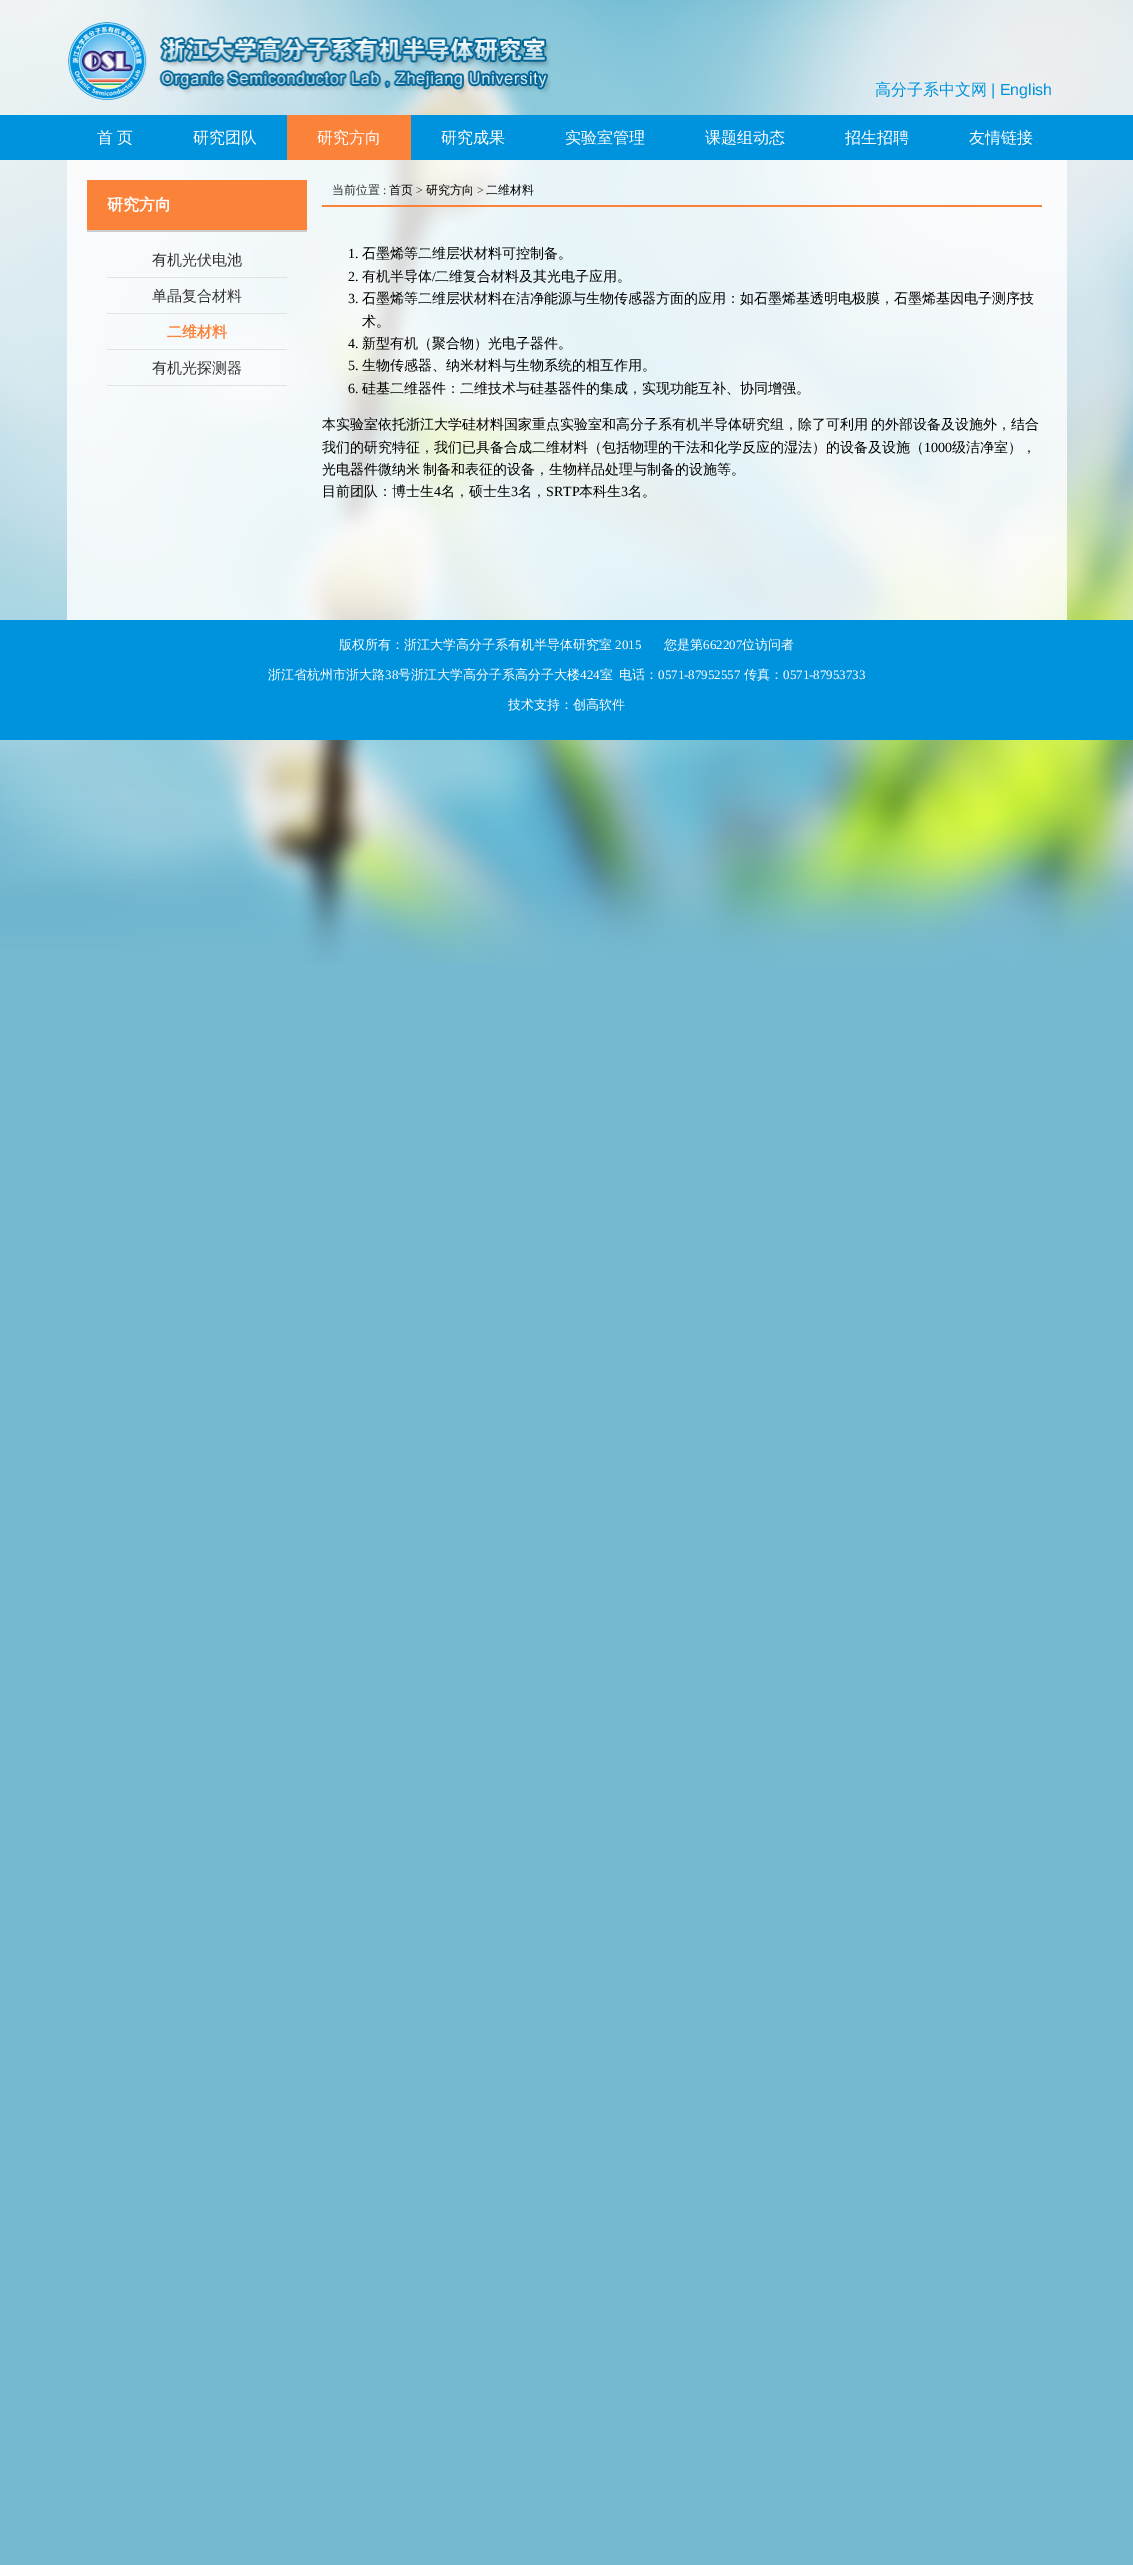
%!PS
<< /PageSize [1133 2565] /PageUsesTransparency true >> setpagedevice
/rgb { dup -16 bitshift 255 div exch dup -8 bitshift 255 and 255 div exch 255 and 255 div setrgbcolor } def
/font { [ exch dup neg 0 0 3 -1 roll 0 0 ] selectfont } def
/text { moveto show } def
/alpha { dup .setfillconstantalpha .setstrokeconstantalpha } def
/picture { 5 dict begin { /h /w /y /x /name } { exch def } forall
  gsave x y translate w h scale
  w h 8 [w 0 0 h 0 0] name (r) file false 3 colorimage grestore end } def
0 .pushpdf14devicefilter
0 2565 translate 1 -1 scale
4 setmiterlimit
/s1 { /WenQuanYiZenHei-Medium 16 font 16#0093DD rgb } def
/s2 { /LiberationSans-Regular 16 font 16#0093DD rgb } def
/s3 { /WenQuanYiZenHei-Medium 16 font 16#FFFFFF rgb } def
/s4 { /WenQuanYiZenHei-Bold 16 font 16#FFFFFF rgb } def
/s5 { /WenQuanYiZenHei-Medium 15 font 16#333333 rgb } def
/s6 { /WenQuanYiZenHei-Bold 15 font 16#FB8239 rgb } def
/s7 { /WenQuanYiZenHei-Medium 12 font 16#333333 rgb } def
/s8 { /LiberationSerif-Regular 12 font 16#333333 rgb } def
/s9 { /WenQuanYiZenHei-Medium 12 font 16#000000 rgb } def
/s10 { /LiberationSerif-Regular 14 font 16#000000 rgb } def
/s11 { /WenQuanYiZenHei-Medium 14 font 16#000000 rgb } def
/s12 { /WenQuanYiZenHei-Medium 13 font 16#FFFFFF rgb } def
/s13 { /LiberationSerif-Regular 13 font 16#FFFFFF rgb } def
16#75B9D1 rgb
0 0 1133 2565 rectfill
(pic1.raw) 0 0 1133 965 picture
(pic2.raw) 68 22 483 78 picture
s1
(高分子系中文网) 875 95 text
s2
(| English) 991 95 text
0 115 1133 45 rectfill
s3
(首) 97 143 text
(页) 117 143 text
(研究团队) 193 143 text
16#FB8239 rgb
287 115 124 45 rectfill
s3
(研究方向) 317 143 text
(研究成果) 441 143 text
(实验室管理) 565 143 text
(课题组动态) 705 143 text
(招生招聘) 845 143 text
(友情链接) 969 143 text
0.8 alpha
67 160 1000 460 rectfill
1 alpha
16#FB8239 rgb
87 180 220 50 rectfill
16#CCCCCC rgb
87 230 220 2 rectfill
s4
(研究方向) 107 210 text
16#E2E2E2 rgb
107 277 180 1 rectfill
s5
(有机光伏电池) 152 265 text
16#E2E2E2 rgb
107 313 180 1 rectfill
s5
(单晶复合材料) 152 301 text
16#E2E2E2 rgb
107 349 180 1 rectfill
s6
(二维材料) 167 337 text
16#E2E2E2 rgb
107 385 180 1 rectfill
s5
(有机光探测器) 152 373 text
16#FB8239 rgb
322 205 720 2 rectfill
s7
(当前位置) 332 194 text
s8
(:) 383 194 text
s9
(首页) 389 194 text
s8
(>) 416 194 text
s9
(研究方向) 426 194 text
s8
(>) 477 194 text
s9
(二维材料) 486 194 text
s10
(1.) 348 258 text
s11
(石墨烯等二维层状材料可控制备。) 362 258 text
s10
(2.) 348 281 text
s11
(有机半导体) 362 281 text
s10
(/) 432 281 text
s11
(二维复合材料及其光电子应用。) 435 281 text
s10
(3.) 348 303 text
s11
(石墨烯等二维层状材料在洁净能源与生物传感器方面的应用：如石墨烯基透明电极膜，石墨烯基因电子测序技) 362 303 text
(术。) 362 326 text
s10
(4.) 348 348 text
s11
(新型有机（聚合物）光电子器件。) 362 348 text
s10
(5.) 348 370 text
s11
(生物传感器、纳米材料与生物系统的相互作用。) 362 370 text
s10
(6.) 348 393 text
s11
(硅基二维器件：二维技术与硅基器件的集成，实现功能互补、协同增强。) 362 393 text
322 429 moveto -1 0 32 (本实验室依托浙江大学硅材料国家重点实验室和高分子系有机半导体研究组，除了可利用 的外部设备及设施外，结合) widthshow
(我们的研究特征，我们已具备合成二维材料（包括物理的干法和化学反应的湿法）的设备及设施（) 322 452 text
s10
(1000) 924 452 text
s11
(级洁净室），) 952 452 text
322 474 moveto -1 0 32 (光电器件微纳米 制备和表征的设备，生物样品处理与制备的设施等。) widthshow
(目前团队：博士生) 322 496 text
s10
(4) 434 496 text
s11
(名，硕士生) 441 496 text
s10
(3) 511 496 text
s11
(名，) 518 496 text
s10
(SRTP) 546 496 text
s11
(本科生) 579 496 text
s10
(3) 621 496 text
s11
(名。) 628 496 text
16#0093DD rgb
0 620 1133 120 rectfill
s12
(版权所有：浙江大学高分子系有机半导体研究室) 339 649 text
s13
(2015) 615 649 text
s12
(您是第) 664 649 text
s13
(662207) 703 649 text
s12
(位访问者) 742 649 text
(浙江省杭州市浙大路) 268 679 text
s13
(38) 385 679 text
s12
(号浙江大学高分子系高分子大楼) 398 679 text
s13
(424) 580 679 text
s12
(室) 600 679 text
(电话：) 619 679 text
s13
(0571-87952557) 658 679 text
s12
(传真：) 744 679 text
s13
(0571-87953733) 783 679 text
s12
(技术支持：创高软件) 508 709 text
.poppdf14devicefilter showpage
